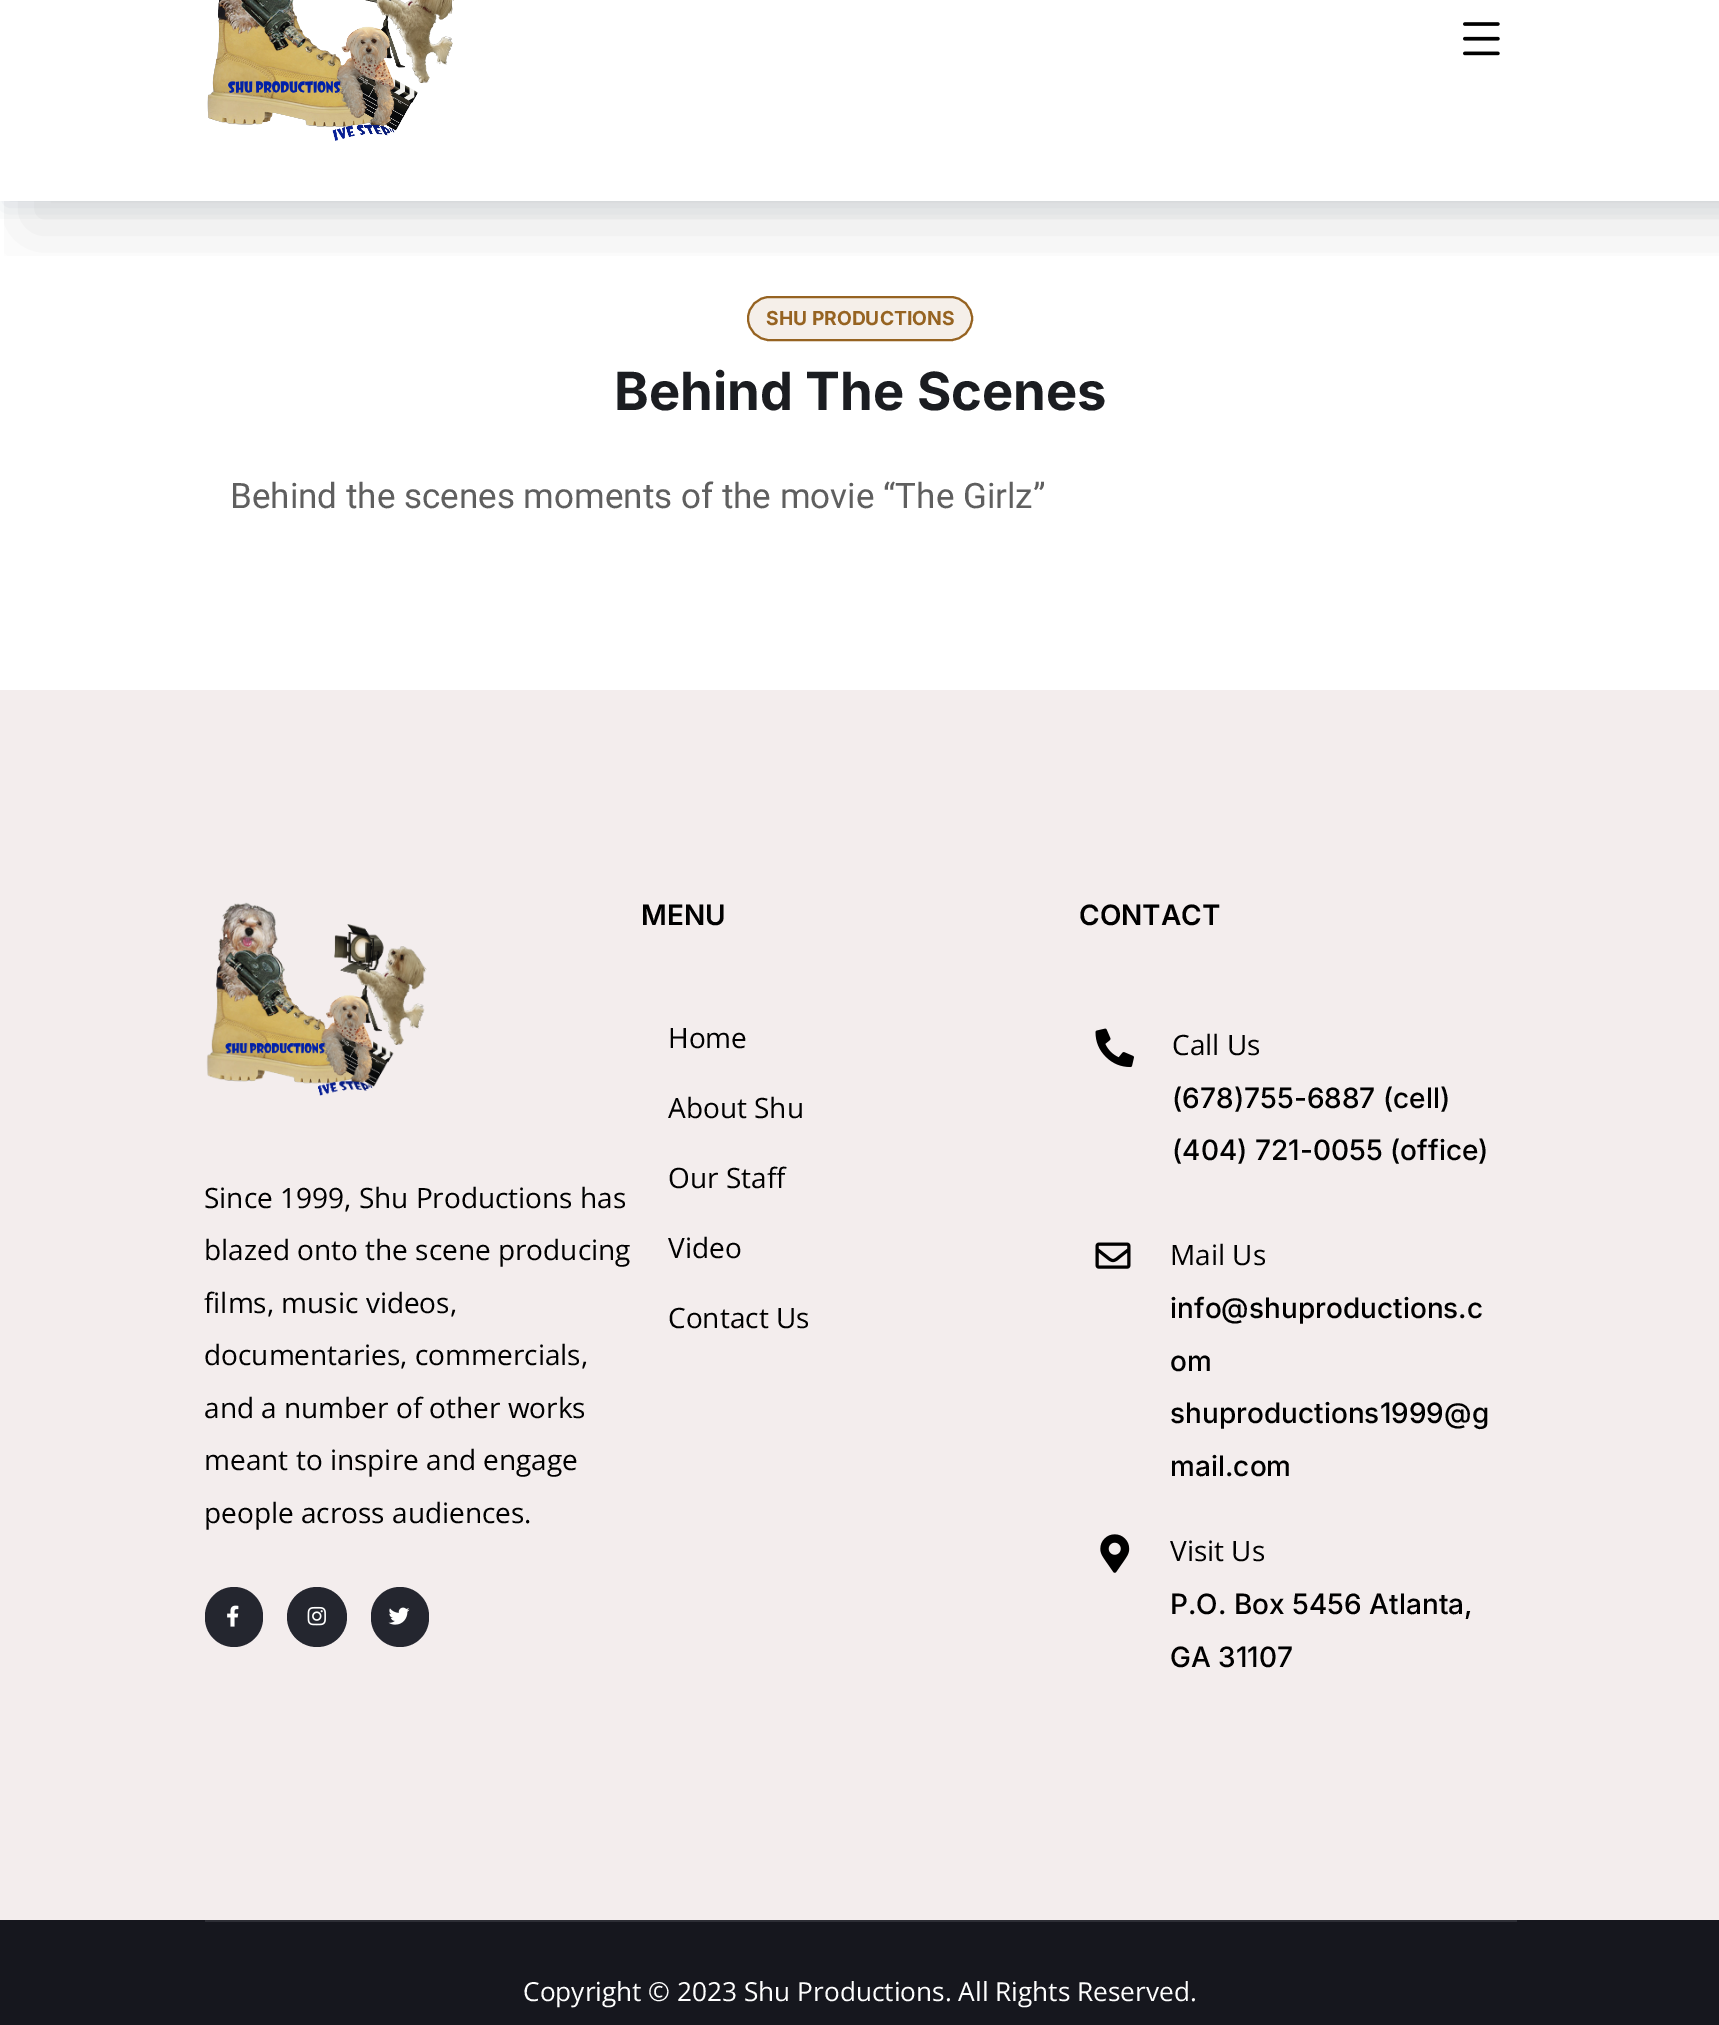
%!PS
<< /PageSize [1719 2025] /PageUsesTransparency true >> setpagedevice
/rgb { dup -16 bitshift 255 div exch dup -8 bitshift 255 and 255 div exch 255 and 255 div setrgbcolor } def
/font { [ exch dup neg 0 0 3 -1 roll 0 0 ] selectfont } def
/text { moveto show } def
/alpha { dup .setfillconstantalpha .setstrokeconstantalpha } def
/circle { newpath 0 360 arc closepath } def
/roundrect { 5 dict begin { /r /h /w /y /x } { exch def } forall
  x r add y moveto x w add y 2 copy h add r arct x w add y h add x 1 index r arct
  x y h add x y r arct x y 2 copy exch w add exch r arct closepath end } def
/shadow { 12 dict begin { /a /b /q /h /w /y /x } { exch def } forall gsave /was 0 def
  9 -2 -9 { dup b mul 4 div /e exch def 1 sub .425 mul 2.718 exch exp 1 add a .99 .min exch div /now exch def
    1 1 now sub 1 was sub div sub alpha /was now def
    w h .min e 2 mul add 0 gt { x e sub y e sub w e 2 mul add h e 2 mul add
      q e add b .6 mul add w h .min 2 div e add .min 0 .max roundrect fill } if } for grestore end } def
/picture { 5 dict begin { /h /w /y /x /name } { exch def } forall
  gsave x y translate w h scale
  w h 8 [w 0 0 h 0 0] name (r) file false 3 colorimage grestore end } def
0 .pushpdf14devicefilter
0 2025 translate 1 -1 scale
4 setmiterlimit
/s1 { /Inter-Bold 19.25 font 16#966321 rgb } def
/s2 { /Inter-Bold 52.5 font 16#1B1D21 rgb } def
/s3 { /Roboto-Regular 35 font 16#5F5F5F rgb } def
/s4 { /OpenSans-Regular 28 font 16#000000 rgb } def
/s5 { /Inter-SemiBold 28 font 16#000000 rgb } def
/s6 { /Inter-Medium 28 font 16#000000 rgb } def
/s7 { /OpenSans-Regular 26.25 font 16#FFFFFF rgb } def
16#FFFFFF rgb
0 0 1719 2025 rectfill
gsave
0 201 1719 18 rectclip
16#2A4371 rgb
4 -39 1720 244 0 13 0.15 shadow
grestore
16#F5EFE9 rgb
748 297 224 43 21.5 roundrect gsave fill grestore
16#966321 rgb
2 setlinewidth
stroke
gsave
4 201 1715 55 rectclip
16#000000 rgb
26 -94 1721 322 0 33 0.1 shadow
grestore
(pic1.raw) 207 0 247 141 picture
(pic2.raw) 1463 22 37 34 picture
s1
(SHU PRODUCTIONS) 766 325 text
s2
(Behind The Scenes) 614 410 text
s3
(Behind the scenes moments of the movie “The Girlz”) 230 508 text
16#F3EDED rgb
0 690 1719 1230 rectfill
(pic3.raw) 206 902 221 194 picture
s4
(Since 1999, Shu Productions has) 204 1208 text
(blazed onto the scene producing) 204 1260 text
(films, music videos,) 204 1313 text
(documentaries, commercials,) 204 1365 text
(and a number of other works) 204 1418 text
(meant to inspire and engage) 204 1470 text
(people across audiences.) 204 1523 text
16#24262F rgb
205 1587 58 60 29 roundrect fill
(pic4.raw) 227 1605 12 22 picture
317 1617 30 circle fill
(pic5.raw) 307 1606 19 20 picture
371 1587 58 60 29 roundrect fill
(pic6.raw) 388 1607 22 18 picture
s5
(MENU) 641 925 text
s4
(Home) 668 1048 text
(About Shu) 668 1118 text
(Our Staff) 668 1188 text
(Video) 668 1258 text
(Contact Us) 668 1328 text
s5
(CONTACT) 1079 925 text
(pic7.raw) 1095 1028 39 40 picture
s4
(Call Us) 1172 1055 text
s6
(\(678\)755-6887 \(cell\)) 1172 1108 text
(\(404\) 721-0055 \(office\)) 1172 1160 text
(pic8.raw) 1095 1242 36 27 picture
s4
(Mail Us) 1170 1265 text
s6
(info@shuproductions.c) 1170 1318 text
(om) 1170 1371 text
(shuproductions1999@g) 1170 1423 text
(mail.com) 1170 1476 text
(pic9.raw) 1100 1534 30 39 picture
s4
(Visit Us) 1170 1561 text
s6
(P.O. Box 5456 Atlanta,) 1170 1614 text
(GA 31107) 1170 1667 text
16#16171E rgb
0 1920 1719 105 rectfill
16#2D2E35 rgb
205 1920 1312 2 rectfill
s7
(Copyright © 2023 Shu Productions. All Rights Reserved.) 523 2001 text
.poppdf14devicefilter showpage
